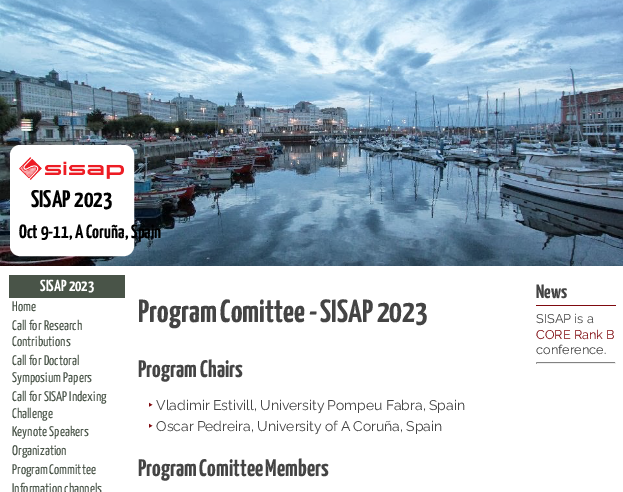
%!PS
<< /PageSize [623 492] >> setpagedevice
/rgb { dup -16 bitshift 255 div exch dup -8 bitshift 255 and 255 div exch 255 and 255 div setrgbcolor } def
/font { [ exch dup neg 0 0 3 -1 roll 0 0 ] selectfont } def
/text { moveto show } def
/roundrect { 5 dict begin { /r /h /w /y /x } { exch def } forall
  x r add y moveto x w add y 2 copy h add r arct x w add y h add x 1 index r arct
  x y h add x y r arct x y 2 copy exch w add exch r arct closepath end } def
/picture { 5 dict begin { /h /w /y /x /name } { exch def } forall
  gsave x y translate w h scale
  w h 8 [w 0 0 h 0 0] name (r) file false 3 colorimage grestore end } def
0 492 translate 1 -1 scale
4 setmiterlimit
/s1 { /YanoneKaffeesatz-Bold 24 font 16#000000 rgb } def
/s2 { /YanoneKaffeesatz-Bold 19.25 font 16#000000 rgb } def
/s3 { /YanoneKaffeesatz-Bold 16 font 16#FFFFFF rgb } def
/s4 { /YanoneKaffeesatz-Regular 14 font 16#495448 rgb } def
/s5 { /YanoneKaffeesatz-Bold 24 font 16#444444 rgb } def
/s6 { /NotoSans-Regular 14 font 16#7F0A0F rgb } def
/s7 { /YanoneKaffeesatz-Bold 19.25 font 16#444444 rgb } def
/s8 { /Raleway-Regular 12.75 font 16#444444 rgb } def
/s9 { /Raleway-Regular 12.75 font 16#7F0A0F rgb } def
16#FFFFFF rgb
0 0 623 492 rectfill
(pic1.raw) 0 0 623 266 picture
14.5 149.5 115 102 5.5 roundrect gsave fill grestore
9 setlinewidth
stroke
(pic2.raw) 19 157 105 23 picture
s1
(SISAP 2023) 31 207 text
s2
(Oct 9-11, A Coruña, Spain) 19 238 text
16#495448 rgb
9 275 116 23 rectfill
s3
(SISAP 2023) 40 291 text
s4
(Home) 12 311 text
(Call for Research) 12 330 text
(Contributions) 12 346 text
(Call for Doctoral) 12 365 text
(Symposium Papers) 12 382 text
(Call for SISAP Indexing) 12 401 text
(Challenge) 12 418 text
(Keynote Speakers) 12 436 text
(Organization) 12 455 text
12 474 moveto -1 0 32 (Program Committee) widthshow
(Information channels) 12 493 text
/YanoneKaffeesatz-Bold 32 font
16#444444 rgb
138 322 moveto -1 0 32 (Program Comittee - SISAP 2023) widthshow
s5
(Program Chairs) 138 377 text
s6
(‣) 148 410 text
/Raleway-Regular 14 font
16#444444 rgb
156 410 moveto -0.5 0 32 (Vladimir Estivill, University Pompeu Fabra, Spain) widthshow
s6
(‣) 148 431 text
/Raleway-Regular 14 font
16#444444 rgb
156 431 moveto -0.5 0 32 (Oscar Pedreira, University of A Coruña, Spain) widthshow
/YanoneKaffeesatz-Bold 24 font
138 476 moveto -1 0 32 (Program Comittee Members) widthshow
16#7F0A0F rgb
536 305 80 1 rectfill
s7
(News) 536 298 text
s8
(SISAP is a) 536 323 text
s9
(CORE Rank B) 536 339 text
s8
(conference.) 536 354 text
16#828282 rgb
536 362 80 1 rectfill
16#EEEEEE rgb
615 362 1 2 rectfill
536 363 80 1 rectfill
16#9F9F9F rgb
536 362 1 2 rectfill
showpage
